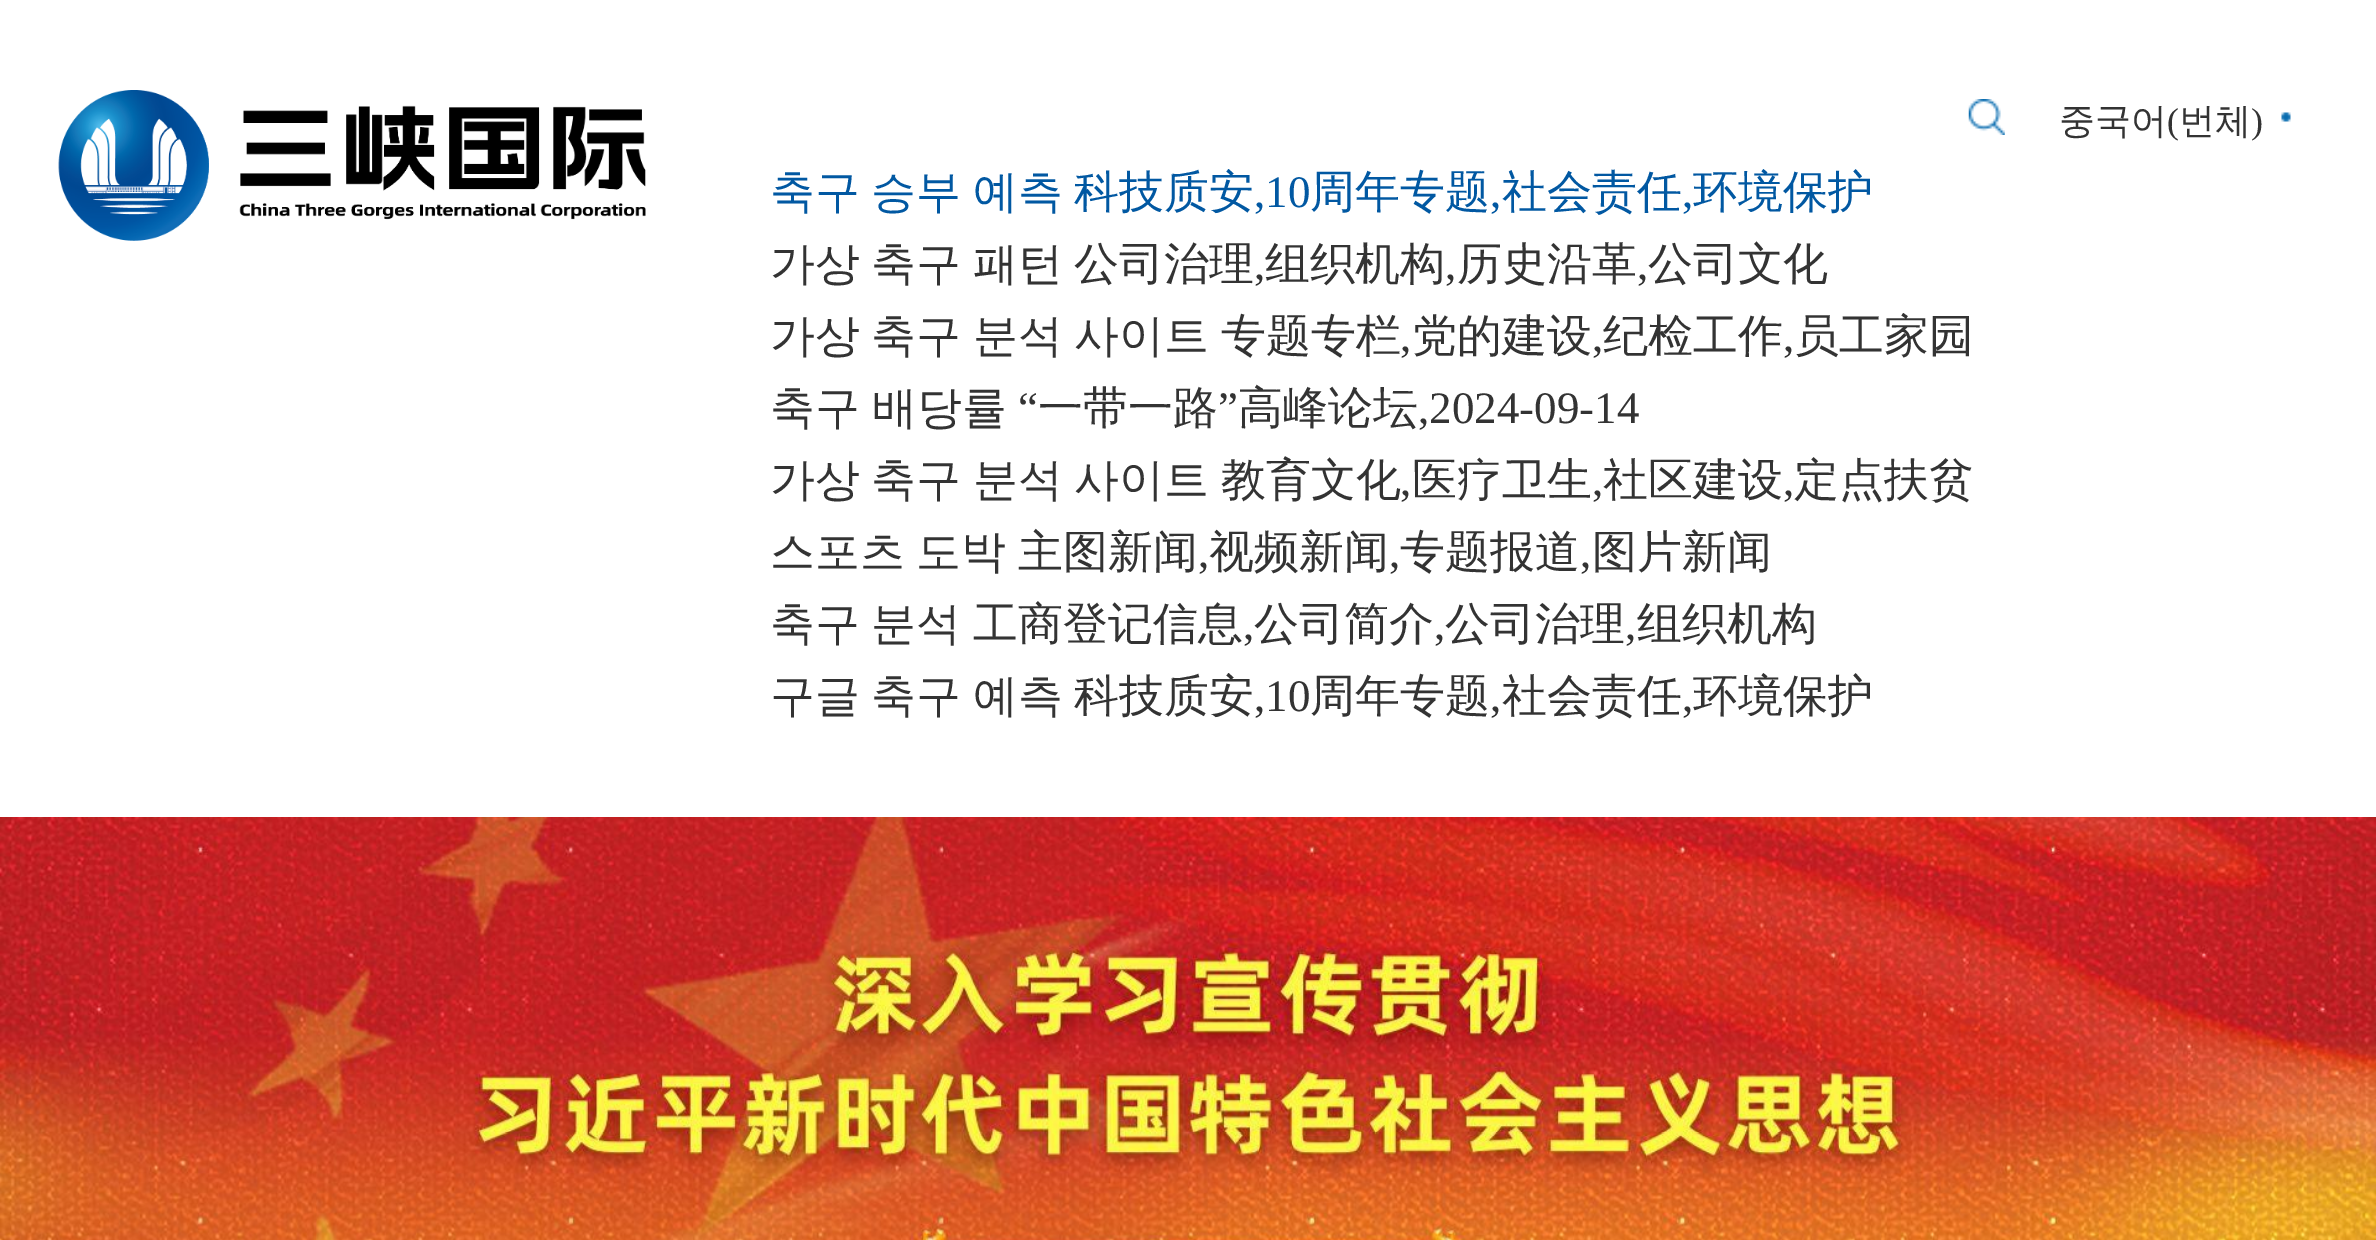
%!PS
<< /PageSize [2376 1240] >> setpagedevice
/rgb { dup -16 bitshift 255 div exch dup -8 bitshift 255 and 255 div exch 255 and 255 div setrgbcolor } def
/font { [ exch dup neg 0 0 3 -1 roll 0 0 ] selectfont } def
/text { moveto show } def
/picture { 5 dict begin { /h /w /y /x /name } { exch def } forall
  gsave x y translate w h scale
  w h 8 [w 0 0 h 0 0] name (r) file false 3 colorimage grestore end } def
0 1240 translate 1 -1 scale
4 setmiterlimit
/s1 { /WenQuanYiZenHei-Medium 36 font 16#333333 rgb } def
/s2 { /LiberationSerif-Regular 36 font 16#333333 rgb } def
/s3 { /LiberationSerif-Regular 45 font 16#0158A2 rgb } def
/s4 { /WenQuanYiZenHei-Medium 45 font 16#0158A2 rgb } def
/s5 { /LiberationSerif-Regular 45 font 16#333333 rgb } def
/s6 { /WenQuanYiZenHei-Medium 45 font 16#333333 rgb } def
16#FFFFFF rgb
0 0 2376 1240 rectfill
(pic1.raw) 58 90 588 151 picture
(pic2.raw) 1968 99 37 36 picture
s1
(중국어) 2059 133 text
s2
(\() 2167 133 text
s1
(번체) 2179 133 text
s2
(\)) 2251 133 text
(pic3.raw) 2281 112 10 10 picture
/WenQuanYiZenHei-Medium 45 font
16#0158A2 rgb
770 207 moveto -2 0 32 (축구 승부 예측 科技质安) widthshow
s3
(,10) 1254 207 text
s4
(周年专题) 1310 207 text
s3
(,) 1490 207 text
s4
(社会责任) 1502 207 text
s3
(,) 1682 207 text
s4
(环境保护) 1693 207 text
16#333333 rgb
770 279 moveto -2 0 32 (가상 축구 패턴 公司治理) widthshow
s5
(,) 1254 279 text
s6
(组织机构) 1265 279 text
s5
(,) 1445 279 text
s6
(历史沿革) 1457 279 text
s5
(,) 1637 279 text
s6
(公司文化) 1648 279 text
770 351 moveto -2 0 32 (가상 축구 분석 사이트 专题专栏) widthshow
s5
(,) 1400 351 text
s6
(党的建设) 1412 351 text
s5
(,) 1592 351 text
s6
(纪检工作) 1603 351 text
s5
(,) 1783 351 text
s6
(员工家园) 1794 351 text
770 423 moveto -1 0 32 (축구 배당률) widthshow
s5
(“) 1018 423 text
s6
(一带一路) 1038 423 text
s5
(”) 1218 423 text
s6
(高峰论坛) 1238 423 text
s5
(,2024-09-14) 1418 423 text
/WenQuanYiZenHei-Medium 45 font
770 495 moveto -2 0 32 (가상 축구 분석 사이트 教育文化) widthshow
s5
(,) 1400 495 text
s6
(医疗卫生) 1412 495 text
s5
(,) 1592 495 text
s6
(社区建设) 1603 495 text
s5
(,) 1783 495 text
s6
(定点扶贫) 1794 495 text
770 567 moveto -2 0 32 (스포츠 도박 主图新闻) widthshow
s5
(,) 1198 567 text
s6
(视频新闻) 1209 567 text
s5
(,) 1389 567 text
s6
(专题报道) 1400 567 text
s5
(,) 1580 567 text
s6
(图片新闻) 1592 567 text
770 639 moveto -2 0 32 (축구 분석 工商登记信息) widthshow
s5
(,) 1243 639 text
s6
(公司简介) 1254 639 text
s5
(,) 1434 639 text
s6
(公司治理) 1445 639 text
s5
(,) 1625 639 text
s6
(组织机构) 1637 639 text
770 711 moveto -2 0 32 (구글 축구 예측 科技质安) widthshow
s5
(,10) 1254 711 text
s6
(周年专题) 1310 711 text
s5
(,) 1490 711 text
s6
(社会责任) 1502 711 text
s5
(,) 1682 711 text
s6
(环境保护) 1693 711 text
(pic4.raw) 0 817 2376 423 picture
showpage
